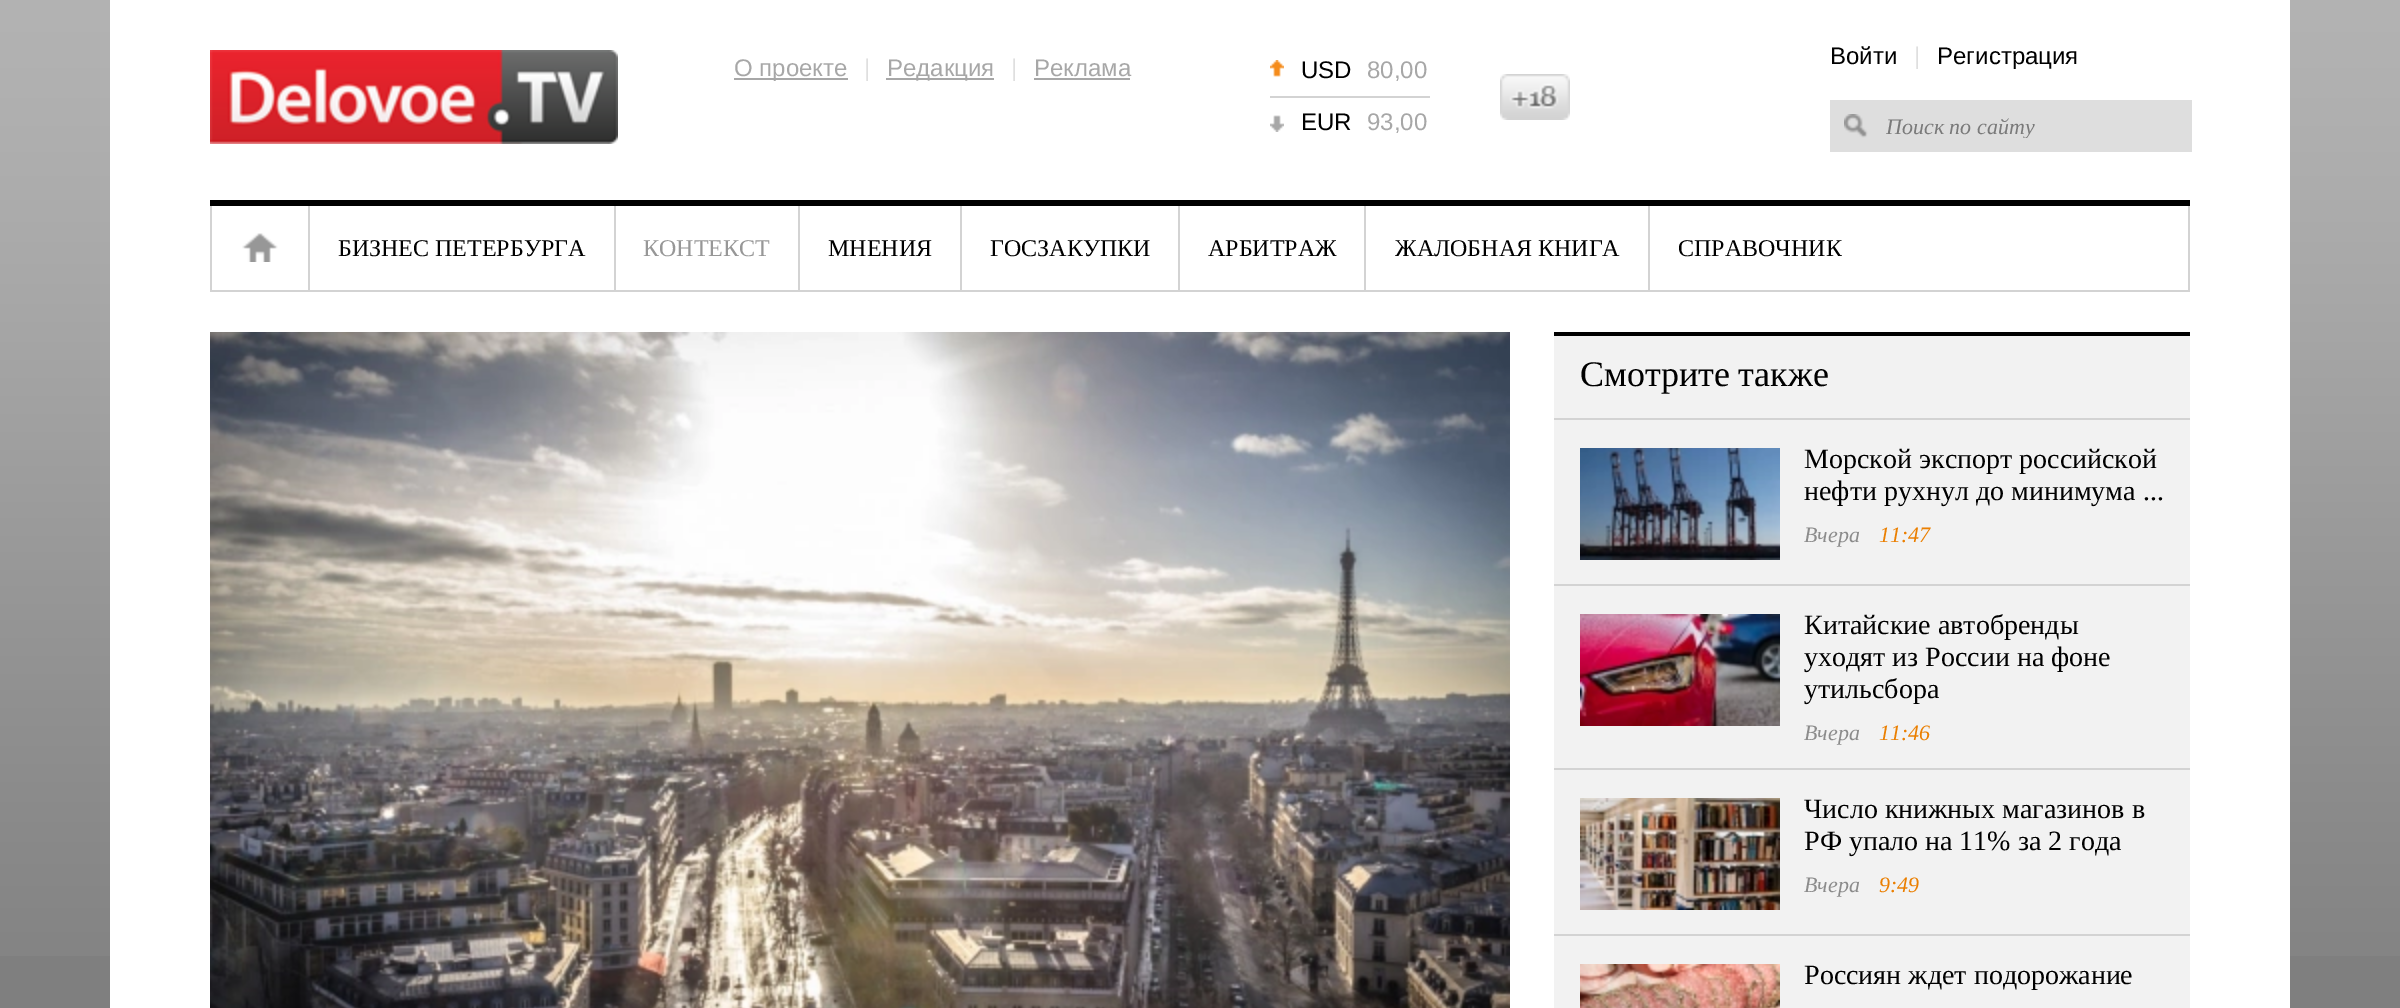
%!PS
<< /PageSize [2400 1008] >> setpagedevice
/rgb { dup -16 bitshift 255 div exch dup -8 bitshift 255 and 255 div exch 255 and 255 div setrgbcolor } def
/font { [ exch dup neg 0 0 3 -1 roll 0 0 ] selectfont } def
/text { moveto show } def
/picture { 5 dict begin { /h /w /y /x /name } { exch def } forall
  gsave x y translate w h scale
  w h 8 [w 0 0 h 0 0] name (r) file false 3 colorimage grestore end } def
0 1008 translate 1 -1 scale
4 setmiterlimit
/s1 { /LiberationSans-Regular 24 font 16#A7A7A7 rgb } def
/s2 { /LiberationSans-Regular 24 font 16#DFDFDF rgb } def
/s3 { /LiberationSans-Regular 24 font 16#000000 rgb } def
/s4 { /LiberationSerif-Italic 22 font 16#7A7A7A rgb } def
/s5 { /LiberationSerif-Regular 24 font 16#000000 rgb } def
/s6 { /LiberationSerif-Regular 24 font 16#979797 rgb } def
/s7 { /LiberationSerif-Regular 36 font 16#000000 rgb } def
/s8 { /LiberationSerif-Regular 28 font 16#000000 rgb } def
/s9 { /LiberationSerif-Italic 22 font 16#8C8C8C rgb } def
/s10 { /LiberationSerif-Italic 22 font 16#EB7F00 rgb } def
16#7F7F7F rgb
0 0 2400 1008 rectfill
(pic1.raw) 0 0 2400 956 picture
16#FFFFFF rgb
110 0 2180 1008 rectfill
(pic2.raw) 210 50 408 94 picture
16#A7A7A7 rgb
734 78 114 2 rectfill
s1
(О проекте) 734 76 text
s2
(|) 864 76 text
16#A7A7A7 rgb
886 78 108 2 rectfill
(Редакция) 887 76 text
s2
(|) 1011 76 text
s1
(Реклама) 1034 76 text
1034 78 96 2 rectfill
(pic3.raw) 1270 60 14 17 picture
16#D3D3D3 rgb
1270 96 160 2 rectfill
s3
(USD) 1301 78 text
s1
(80,00) 1367 78 text
(pic4.raw) 1270 115 14 17 picture
s3
(EUR) 1301 130 text
s1
(93,00) 1367 130 text
(pic5.raw) 1500 74 70 46 picture
s3
(Войти) 1830 64 text
s2
(|) 1914 64 text
s3
(Регистрация) 1937 64 text
16#DEDEDE rgb
1830 100 362 52 rectfill
(pic6.raw) 1844 114 24 24 picture
gsave
1886 114 296 24 rectclip
s4
(Поиск по сайту) 1886 134 text
grestore
16#000000 rgb
210 200 1980 6 rectfill
16#D3D3D3 rgb
210 290 1980 2 rectfill
2188 206 2 84 rectfill
210 206 2 84 rectfill
308 206 2 84 rectfill
(pic7.raw) 242 233 36 29 picture
614 206 2 84 rectfill
s5
(БИЗНЕС ПЕТЕРБУРГА) 338 256 text
16#D3D3D3 rgb
798 206 2 84 rectfill
s6
(КОНТЕКСТ) 643 256 text
16#D3D3D3 rgb
960 206 2 84 rectfill
s5
(МНЕНИЯ) 828 256 text
16#D3D3D3 rgb
1178 206 2 84 rectfill
s5
(ГОСЗАКУПКИ) 990 256 text
16#D3D3D3 rgb
1364 206 2 84 rectfill
s5
(АРБИТРАЖ) 1208 256 text
16#D3D3D3 rgb
1648 206 2 84 rectfill
s5
(ЖАЛОБНАЯ КНИГА) 1395 256 text
(СПРАВОЧНИК) 1678 256 text
(pic8.raw) 210 332 1300 676 picture
16#F2F2F2 rgb
1554 336 636 672 rectfill
16#000000 rgb
1554 332 636 4 rectfill
16#D3D3D3 rgb
1554 418 636 2 rectfill
s7
(Смотрите также) 1580 386 text
16#D3D3D3 rgb
1554 584 636 2 rectfill
(pic9.raw) 1580 448 200 112 picture
s8
(Морской экспорт российской) 1804 468 text
(нефти рухнул до минимума ...) 1804 500 text
s9
(Вчера) 1804 542 text
s10
(11:47) 1879 542 text
16#D3D3D3 rgb
1554 768 636 2 rectfill
(pic10.raw) 1580 614 200 112 picture
s8
(Китайские автобренды) 1804 634 text
(уходят из России на фоне) 1804 666 text
(утильсбора) 1804 698 text
s9
(Вчера) 1804 740 text
s10
(11:46) 1879 740 text
16#D3D3D3 rgb
1554 934 636 2 rectfill
(pic11.raw) 1580 798 200 112 picture
s8
(Число книжных магазинов в) 1804 818 text
(РФ упало на 11% за 2 года) 1804 850 text
s9
(Вчера) 1804 892 text
s10
(9:49) 1879 892 text
(pic12.raw) 1580 964 200 44 picture
s8
(Россиян ждет подорожание) 1804 984 text
showpage
